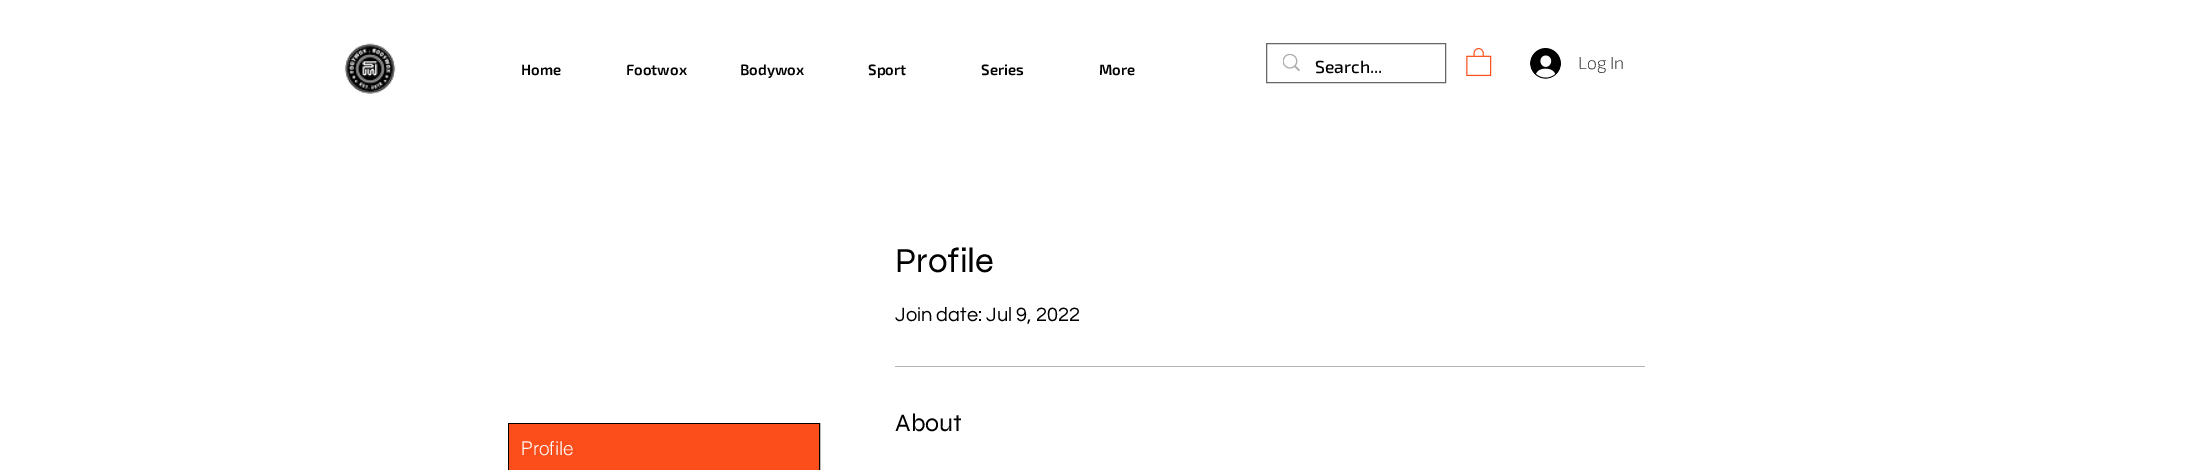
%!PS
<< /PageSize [2190 470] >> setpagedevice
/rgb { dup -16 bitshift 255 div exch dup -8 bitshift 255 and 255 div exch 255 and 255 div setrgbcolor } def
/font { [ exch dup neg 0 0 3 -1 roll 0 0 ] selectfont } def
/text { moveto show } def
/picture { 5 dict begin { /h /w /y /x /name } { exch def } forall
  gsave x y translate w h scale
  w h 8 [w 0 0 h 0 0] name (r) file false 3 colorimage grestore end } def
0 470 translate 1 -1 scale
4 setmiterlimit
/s1 { /Exo2-SemiBold 15 font 16#000000 rgb } def
/s2 { /Exo2-Medium 17.5 font 16#000000 rgb } def
/s3 { /Exo2-ExtraLight 17.5 font 16#000000 rgb } def
/s4 { /Syne-Regular 35 font 16#000000 rgb } def
/s5 { /Questrial-Regular 20 font 16#000000 rgb } def
/s6 { /Syne-Regular 25 font 16#000000 rgb } def
/s7 { /helvetica-Light 19 font 16#FFFFFF rgb } def
16#FFFFFF rgb
0 0 2190 470 rectfill
(pic1.raw) 344 43 52 51 picture
s1
(Home) 521 75 text
(Footwox) 626 75 text
(Bodywox) 740 75 text
(Sport) 868 75 text
(Series) 981 75 text
(More) 1099 75 text
16#666666 rgb
1266.5 43.5 179 39 rectstroke
(pic2.raw) 1283 54 17 17 picture
s2
(Search...) 1315 73 text
(pic3.raw) 1466 48 26 29 picture
(pic4.raw) 1530 48 31 31 picture
s3
(Log In) 1578 69 text
s4
(Profile) 895 272 text
s5
(Join date: Jul 9, 2022) 895 321 text
16#B3B3B3 rgb
895 366 750 1 rectfill
s6
(About) 895 431 text
508.5 423.5 311 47 rectstroke
16#FC4E1A rgb
509 424 310 46 rectfill
s7
(Profile) 521 455 text
showpage
